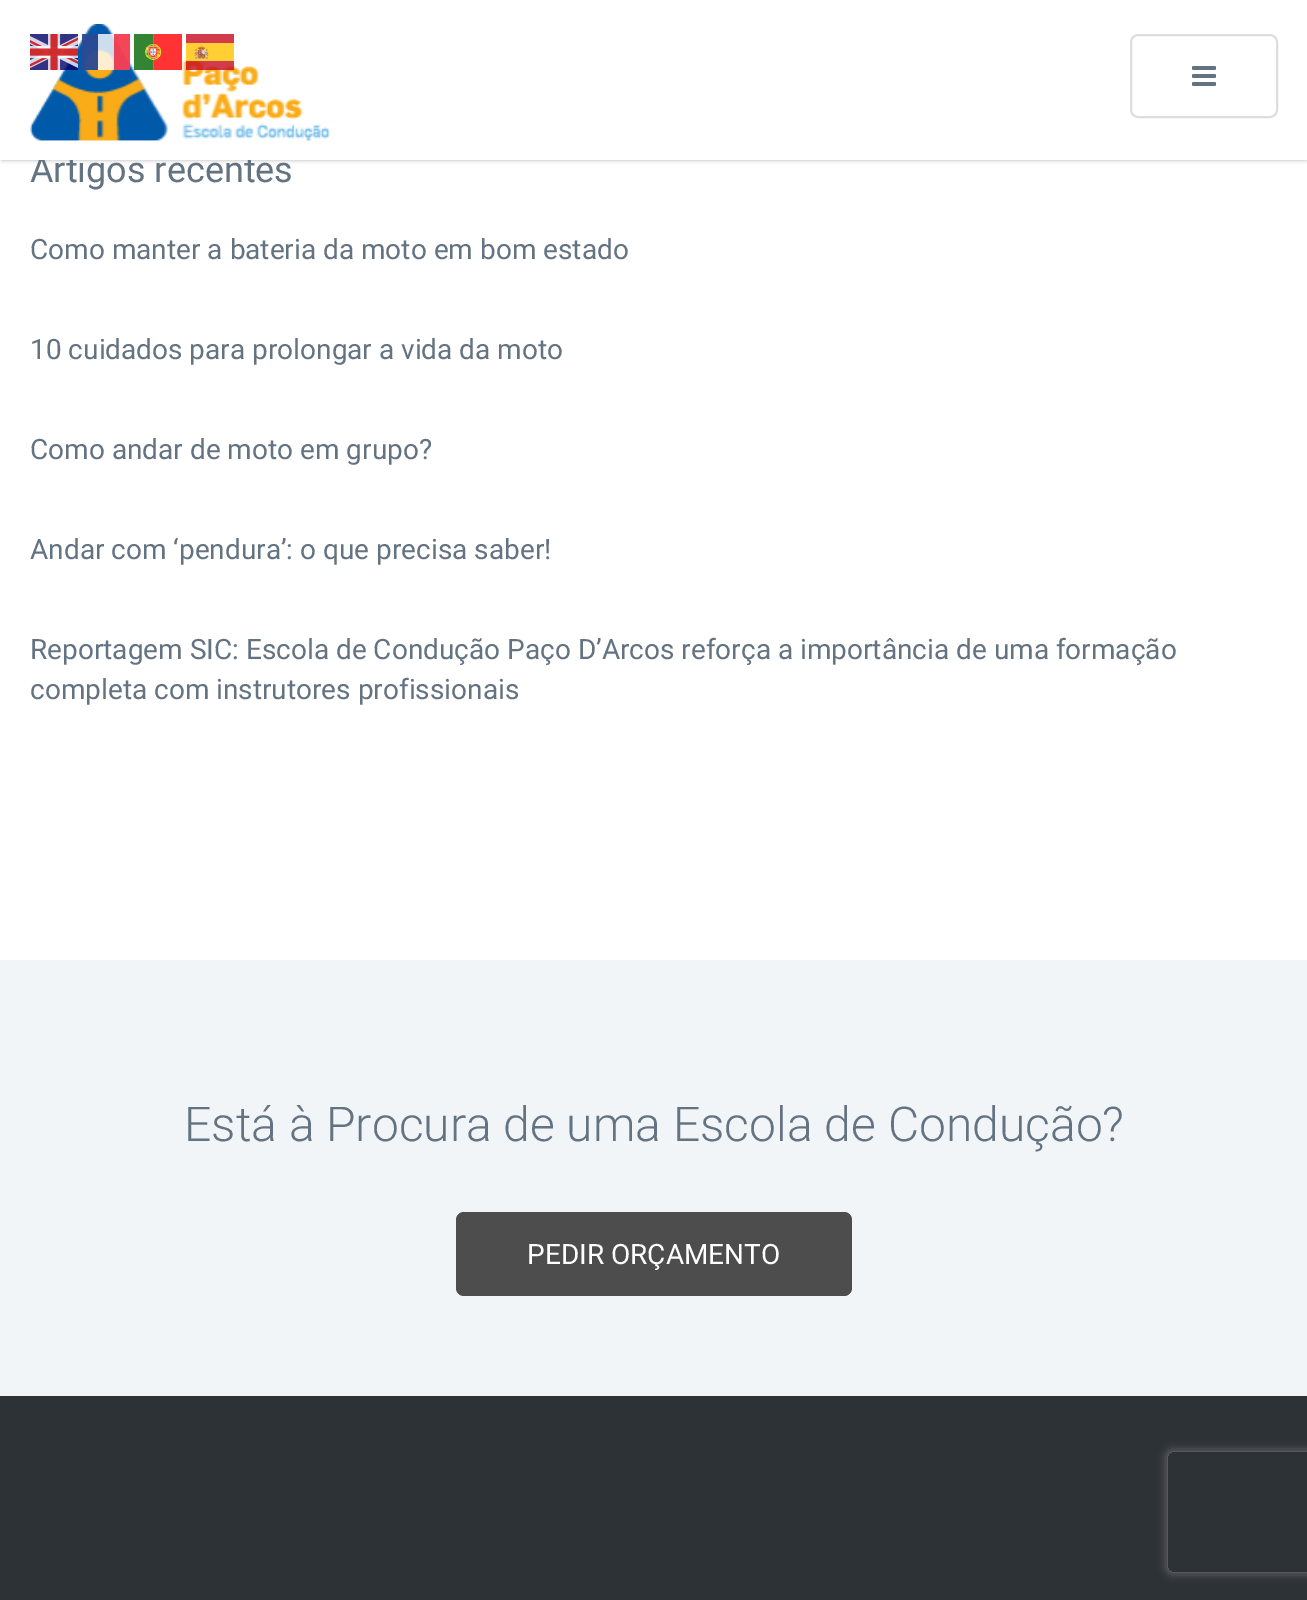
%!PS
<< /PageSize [1307 1600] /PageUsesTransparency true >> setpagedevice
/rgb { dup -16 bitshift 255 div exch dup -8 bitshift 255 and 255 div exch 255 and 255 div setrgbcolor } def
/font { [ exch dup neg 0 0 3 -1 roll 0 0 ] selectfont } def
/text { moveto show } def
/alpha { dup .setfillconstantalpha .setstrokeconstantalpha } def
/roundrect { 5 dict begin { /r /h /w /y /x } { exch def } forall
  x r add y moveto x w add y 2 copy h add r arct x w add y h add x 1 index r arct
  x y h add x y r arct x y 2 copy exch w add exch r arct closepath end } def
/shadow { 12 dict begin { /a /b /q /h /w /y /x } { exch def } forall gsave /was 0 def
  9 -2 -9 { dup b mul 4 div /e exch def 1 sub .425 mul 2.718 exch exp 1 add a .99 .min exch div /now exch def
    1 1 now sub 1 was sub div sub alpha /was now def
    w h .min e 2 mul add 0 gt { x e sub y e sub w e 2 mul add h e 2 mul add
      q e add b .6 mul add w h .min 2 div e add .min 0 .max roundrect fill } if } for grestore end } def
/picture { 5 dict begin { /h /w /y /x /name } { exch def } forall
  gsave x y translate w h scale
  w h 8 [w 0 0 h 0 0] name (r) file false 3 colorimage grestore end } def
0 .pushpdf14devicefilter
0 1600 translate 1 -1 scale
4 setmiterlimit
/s1 { /Roboto-Regular 36 font 16#647382 rgb } def
/s2 { /Roboto-Regular 28 font 16#647382 rgb } def
/s3 { /Roboto-Light 48 font 16#647382 rgb } def
/s4 { /Roboto-Regular 28 font 16#FFFFFF rgb } def
16#FFFFFF rgb
0 0 1307 1600 rectfill
16#000000 rgb
2 4 1304 156 0 2 0.32 shadow
s1
(Artigos recentes) 30 182 text
16#FFFFFF rgb
0 0 1307 160 rectfill
(pic4.raw) 30 24 300 117 picture
(pic1.raw) 30 34 48 36 picture
0.8 alpha
82 34 48 36 rectfill
16#00267F rgb
82 34 16 36 rectfill
16#F31830 rgb
114 34 16 36 rectfill
1 alpha
(pic2.raw) 134 34 48 36 picture
(pic3.raw) 186 34 48 36 picture
16#DDDDDD rgb
2 setlinewidth
1131 35 146 82 7 roundrect stroke
(pic5.raw) 1192 66 24 20 picture
s2
(Como manter a bateria da moto em bom estado) 30 259 text
(10 cuidados para prolongar a vida da moto) 30 359 text
(Como andar de moto em grupo?) 30 459 text
(Andar com ‘pendura’: o que precisa saber!) 30 559 text
(Reportagem SIC: Escola de Condução Paço D’Arcos reforça a importância de uma formação) 30 659 text
(completa com instrutores profissionais) 30 699 text
16#2D3237 rgb
0 1396 1307 204 rectfill
gsave
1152 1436 moveto 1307 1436 lineto 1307 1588 lineto 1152 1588 lineto closepath 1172 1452 moveto 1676 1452 lineto 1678 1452 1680 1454 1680 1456 curveto 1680 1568 lineto 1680 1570 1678 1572 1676 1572 curveto 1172 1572 lineto 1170 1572 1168 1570 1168 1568 curveto 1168 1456 lineto 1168 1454 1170 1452 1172 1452 curveto closepath eoclip newpath
16#808080 rgb
1168 1452 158 120 4 5 1 shadow
grestore
16#F2F5F8 rgb
0 960 1307 436 rectfill
s3
(Está à Procura de uma Escola de Condução?) 184 1141 text
16#4D4D4D rgb
456 1212 396 84 8 roundrect fill
s4
(PEDIR ORÇAMENTO) 527 1264 text
.poppdf14devicefilter showpage
